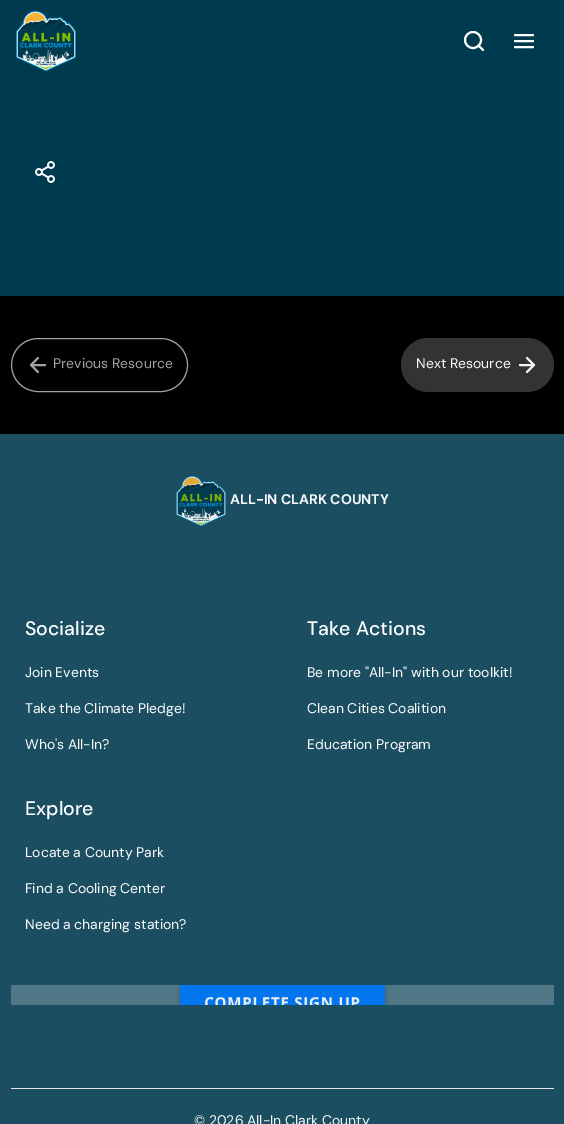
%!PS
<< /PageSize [564 1124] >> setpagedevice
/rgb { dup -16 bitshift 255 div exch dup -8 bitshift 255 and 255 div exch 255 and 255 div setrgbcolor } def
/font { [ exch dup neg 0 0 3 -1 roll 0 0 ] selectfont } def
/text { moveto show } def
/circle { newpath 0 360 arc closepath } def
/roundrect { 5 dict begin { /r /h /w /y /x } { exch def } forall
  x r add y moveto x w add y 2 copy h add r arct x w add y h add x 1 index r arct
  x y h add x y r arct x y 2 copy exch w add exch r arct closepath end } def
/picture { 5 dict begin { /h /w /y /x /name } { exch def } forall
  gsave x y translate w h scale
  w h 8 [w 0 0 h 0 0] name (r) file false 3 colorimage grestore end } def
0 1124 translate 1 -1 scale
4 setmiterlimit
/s1 { /DMSans-Regular 14 font 16#A1A2A3 rgb } def
/s2 { /DMSans-Regular 14 font 16#F8F9FA rgb } def
/s3 { /DMSans-Bold 14 font 16#F8F9FA rgb } def
/s4 { /DMSans-Medium 19.5 font 16#FFFFFF rgb } def
/s5 { /DMSans-Regular 14 font 16#FFFFFF rgb } def
16#000000 rgb
0 0 564 1124 rectfill
16#003A4E rgb
0 0 564 296 rectfill
(pic1.raw) 16 11 60 60 picture
16#FFFFFF rgb
2 setlinewidth
473 40 8 circle stroke
1 setlinecap
1 setlinejoin
483 50 moveto 478.5 45.5 lineto 515 41 moveto 533 41 lineto 515 35 moveto 533 35 lineto 515 47 moveto 533 47 lineto stroke
(pic2.raw) 35 161 20 22 picture
16#A1A2A3 rgb
1 setlinewidth
0 setlinecap
0 setlinejoin
11.5 338.5 176 53 26.5 roundrect stroke
2 setlinewidth
1 setlinecap
1 setlinejoin
45 365 moveto 31 365 lineto 38 372 moveto 31 365 lineto 38 358 lineto stroke
s1
(Previous Resource) 53 368 text
16#333333 rgb
401 338 153 54 27 roundrect fill
s2
(Next Resource) 416 368 text
520 365 moveto 534 365 lineto 527 358 moveto 534 365 lineto 527 372 lineto stroke
16#1A4E60 rgb
0 434 564 690 rectfill
(pic3.raw) 176 476 50 50 picture
s3
(ALL-IN CLARK COUNTY) 230 504 text
16#204A59 rgb
11 654 261 1 rectfill
s4
(Socialize) 25 635 text
16#204A59 rgb
11 690 261 1 rectfill
s5
(Join Events) 25 677 text
16#204A59 rgb
11 726 261 1 rectfill
s5
(Take the Climate Pledge!) 25 713 text
(Who's All-In?) 25 749 text
16#204A59 rgb
293 654 261 1 rectfill
s4
(Take Actions) 307 635 text
16#204A59 rgb
293 690 261 1 rectfill
s5
(Be more "All-In" with our toolkit!) 307 677 text
16#204A59 rgb
293 726 261 1 rectfill
s5
(Clean Cities Coalition) 307 713 text
(Education Program) 307 749 text
16#204A59 rgb
11 834 261 1 rectfill
s4
(Explore) 25 815 text
16#204A59 rgb
11 870 261 1 rectfill
s5
(Locate a County Park) 25 857 text
16#204A59 rgb
11 906 261 1 rectfill
s5
(Find a Cooling Center) 25 893 text
(Need a charging station?) 25 929 text
(pic4.raw) 11 985 543 20 picture
16#E1E5E9 rgb
11 1088 543 1 rectfill
s2
(© 2026 All-In Clark County) 194 1125 text
showpage
